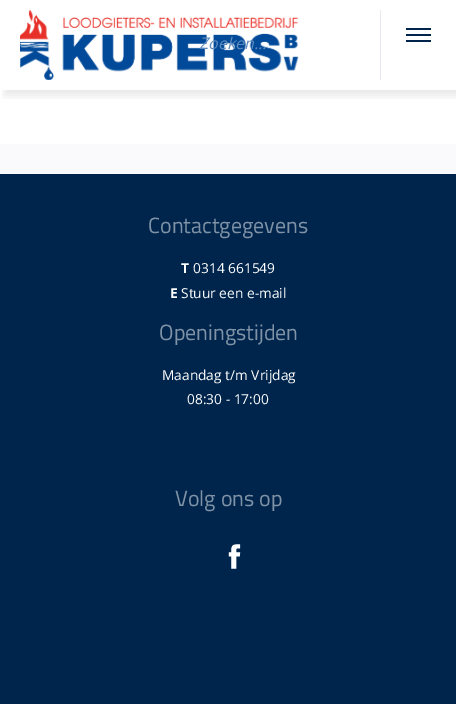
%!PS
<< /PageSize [456 723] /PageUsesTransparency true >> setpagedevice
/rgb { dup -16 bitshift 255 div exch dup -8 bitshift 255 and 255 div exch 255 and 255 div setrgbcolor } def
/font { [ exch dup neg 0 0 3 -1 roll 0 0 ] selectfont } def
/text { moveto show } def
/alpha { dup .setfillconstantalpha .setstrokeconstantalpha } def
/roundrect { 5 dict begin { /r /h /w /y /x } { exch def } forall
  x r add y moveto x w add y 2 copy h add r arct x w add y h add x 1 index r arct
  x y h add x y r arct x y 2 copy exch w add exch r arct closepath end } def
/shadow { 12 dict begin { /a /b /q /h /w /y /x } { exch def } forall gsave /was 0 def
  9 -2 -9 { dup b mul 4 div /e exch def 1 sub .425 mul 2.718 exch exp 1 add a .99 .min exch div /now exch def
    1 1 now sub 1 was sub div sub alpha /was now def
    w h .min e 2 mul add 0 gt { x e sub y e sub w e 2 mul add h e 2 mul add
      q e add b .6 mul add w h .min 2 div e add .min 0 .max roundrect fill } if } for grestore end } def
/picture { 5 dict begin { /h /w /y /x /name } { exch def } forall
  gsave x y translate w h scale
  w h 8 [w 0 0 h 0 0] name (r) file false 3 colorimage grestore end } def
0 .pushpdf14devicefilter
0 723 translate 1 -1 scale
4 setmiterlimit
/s1 { /OpenSans-Italic 16 font 16#5E8CBE rgb } def
/s2 { /TitilliumWeb-Regular 22 font 16#8092A6 rgb } def
/s3 { /OpenSans-Bold 13.75 font 16#FFFFFF rgb } def
/s4 { /OpenSans-Regular 13.75 font 16#FFFFFF rgb } def
16#FFFFFF rgb
0 0 456 723 rectfill
gsave
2 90 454 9 rectclip
16#000000 rgb
5 5 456 90 0 5 0.1 shadow
grestore
(pic1.raw) 20 10 279 70 picture
16#E6E9ED rgb
380 10 1 70 rectfill
16#00254D rgb
406 34 25 2 rectfill
406 28 25 2 rectfill
406 40 25 2 rectfill
s1
(Zoeken...) 199 49 text
16#FAFAFD rgb
0 144 456 30 rectfill
16#00254D rgb
0 174 456 530 rectfill
s2
(Contactgegevens) 148 233 text
s3
(T) 181 273 text
s4
(0314 661549) 193 273 text
s3
(E) 170 298 text
s4
(Stuur een e-mail) 181 298 text
s2
(Openingstijden) 159 340 text
s4
(Maandag t/m Vrijdag) 162 380 text
(08:30 - 17:00) 187 404 text
s2
(Volg ons op) 175 506 text
(pic2.raw) 228 544 13 25 picture
.poppdf14devicefilter showpage
